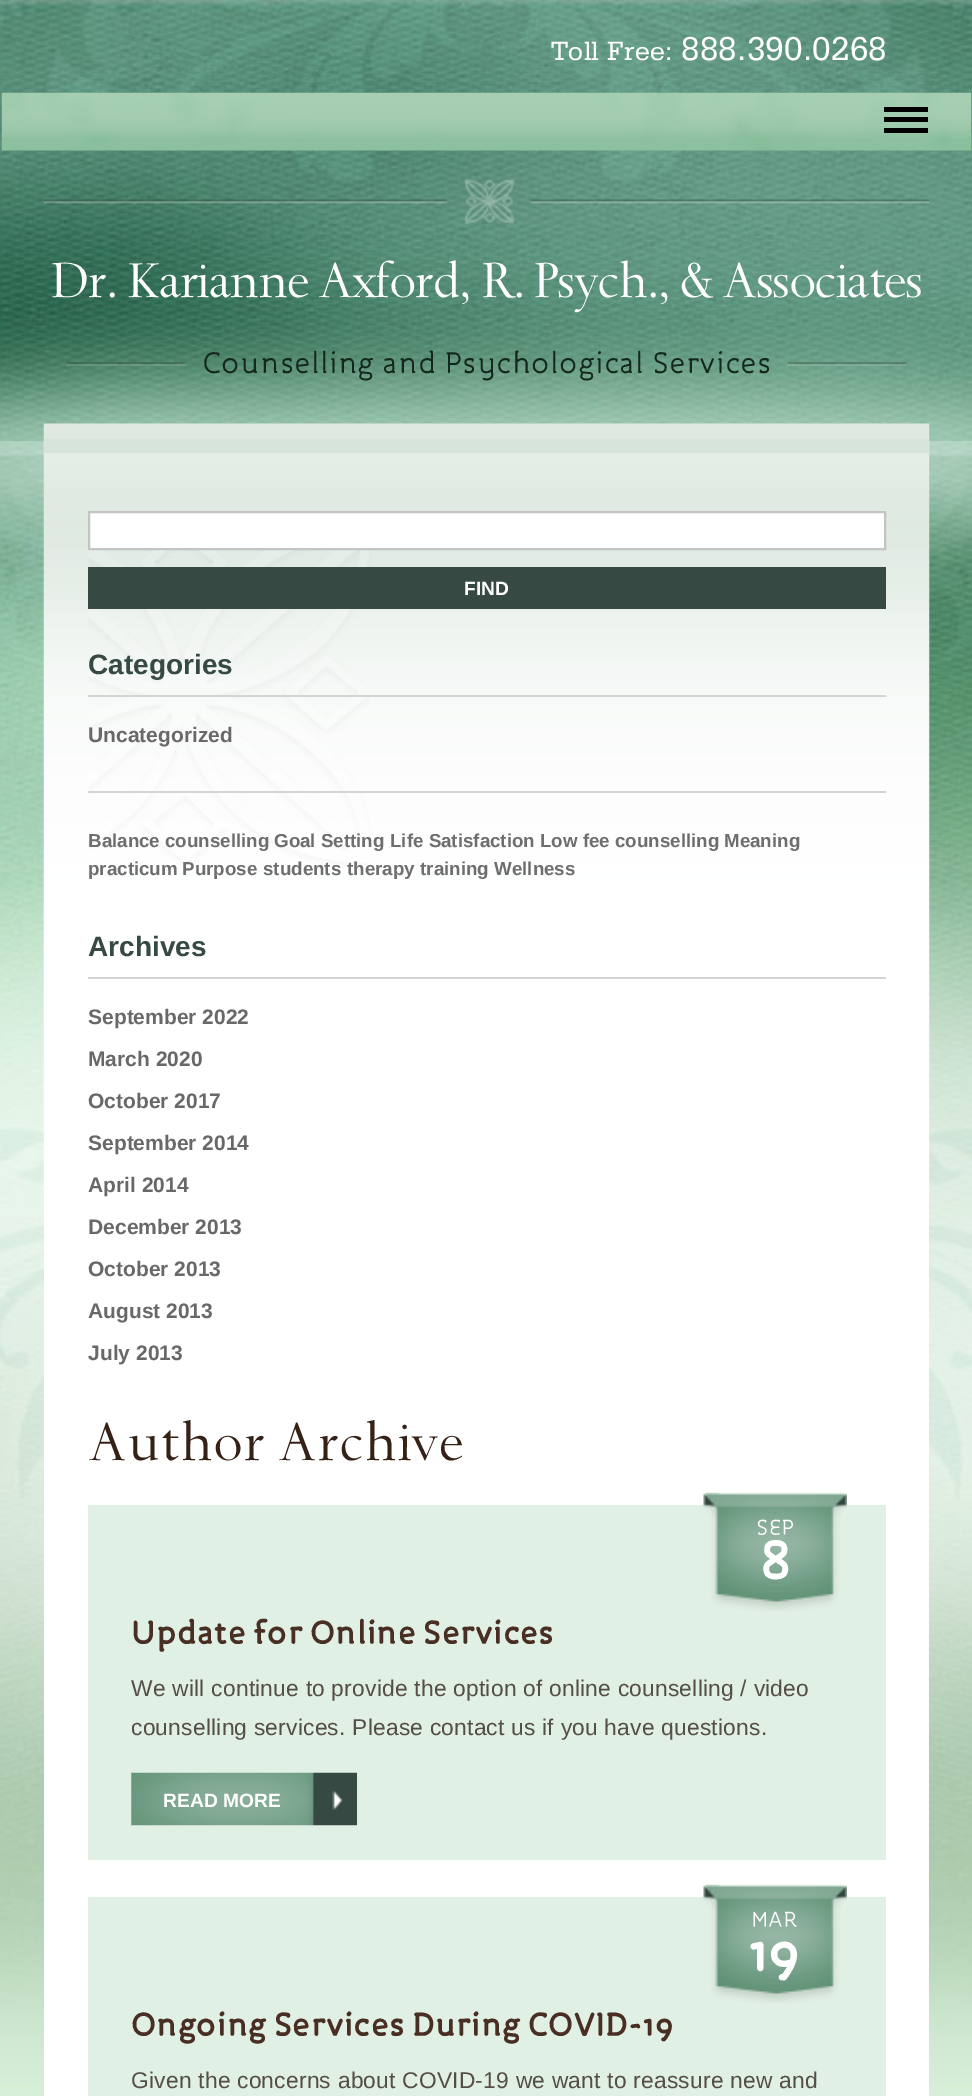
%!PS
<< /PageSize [972 2096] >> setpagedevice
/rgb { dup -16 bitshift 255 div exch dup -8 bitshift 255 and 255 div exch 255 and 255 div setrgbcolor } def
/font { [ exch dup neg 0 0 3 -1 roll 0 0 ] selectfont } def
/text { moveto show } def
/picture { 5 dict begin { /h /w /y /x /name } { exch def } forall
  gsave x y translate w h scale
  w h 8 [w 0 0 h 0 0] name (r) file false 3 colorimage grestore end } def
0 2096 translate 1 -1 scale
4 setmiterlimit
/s1 { /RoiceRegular-Regular 33.25 font 16#13271E rgb } def
/s2 { /LiberationSans-Bold 19.25 font 16#FFFFFF rgb } def
/s3 { /LiberationSans-Bold 28 font 16#364A43 rgb } def
/s4 { /LiberationSans-Bold 21 font 16#686868 rgb } def
/s5 { /LiberationSans-Bold 18.75 font 16#6E6E6E rgb } def
/s6 { /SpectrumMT-Medium 63 font 16#362117 rgb } def
/s7 { /RoiceRegular-Regular 24 font 16#FFFFFF rgb } def
/s8 { /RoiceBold-Bold 60 font 16#FFFFFF rgb } def
/s9 { /RoiceBold-Bold 35 font 16#492F23 rgb } def
16#FFFFFF rgb
0 0 972 2096 rectfill
(pic1.raw) 0 0 972 2096 picture
/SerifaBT-Regular 28 font
551 60 moveto 0.25 0 (Toll Free:) ashow
/SerifaBT-Regular 35 font
681 60 moveto 0.25 0 (888.390.0268) ashow
(pic2.raw) 1 92 971 59 picture
16#000000 rgb
884 117 44 5 rectfill
884 107 44 5 rectfill
884 128 44 5 rectfill
(pic3.raw) 43 178 887 46 picture
/SpectrumMT-Medium 57.75 font
16#FFFFFF rgb
51 297 moveto -1.75 0 (Dr. Karianne Axford, R. Psych., & Associates) ashow
(pic4.raw) 66 362 120 4 picture
(pic5.raw) 787 362 120 4 picture
s1
(Counselling and Psychological Services) 202 372 text
(pic6.raw) 0 441 972 431 picture
16#FFFFFF rgb
44 1193 885 903 rectfill
(pic7.raw) 43 441 887 752 picture
(pic8.raw) 43 423 887 30 picture
(pic9.raw) 88 550 283 315 picture
89 512 moveto 885 512 lineto 885 549 lineto 89 549 lineto closepath gsave fill grestore
16#C4C4C4 rgb
2 setlinewidth
stroke
16#364A43 rgb
88 567 798 42 rectfill
s2
(FIND) 464 595 text
16#D4D4D4 rgb
88 695 798 2 rectfill
s3
(Categories) 88 674 text
s4
(Uncategorized) 88 742 text
16#D4D4D4 rgb
88 791 798 2 rectfill
s5
(Balance) 88 847 text
(counselling) 165 847 text
(Goal Setting) 274 847 text
(Life Satisfaction) 390 847 text
(Low fee counselling) 540 847 text
(Meaning) 724 847 text
(practicum) 88 875 text
(Purpose) 182 875 text
(students) 263 875 text
(therapy) 347 875 text
(training) 420 875 text
(Wellness) 494 875 text
16#D4D4D4 rgb
88 977 798 2 rectfill
s3
(Archives) 88 956 text
s4
(September 2022) 88 1024 text
(March 2020) 88 1066 text
(October 2017) 88 1108 text
(September 2014) 88 1150 text
(April 2014) 88 1192 text
(December 2013) 88 1234 text
(October 2013) 88 1276 text
(August 2013) 88 1318 text
(July 2013) 88 1360 text
s6
(Author Archive) 88 1460 text
16#E1F0E4 rgb
88 1505 798 355 rectfill
(pic10.raw) 703 1492 144 119 picture
s7
(SEP) 756 1534 text
s8
(8) 760 1576 text
s9
(Update for Online Services) 131 1642 text
/LiberationSans-Regular 22.75 font
16#554E48 rgb
131 1696 moveto 0.23 0 (We will continue to provide the option of online counselling / video) ashow
131 1735 moveto 0.23 0 (counselling services. Please contact us if you have questions.) ashow
(pic11.raw) 131 1772 226 54 picture
s2
(READ MORE) 163 1807 text
16#E1F0E4 rgb
88 1897 798 199 rectfill
(pic12.raw) 703 1884 144 119 picture
s7
(MAR) 751 1926 text
s8
(19) 749 1968 text
s9
(Ongoing Services During COVID-19) 131 2034 text
/LiberationSans-Regular 22.75 font
16#554E48 rgb
131 2088 moveto 0.23 0 (Given the concerns about COVID-19 we want to reassure new and) ashow
showpage
